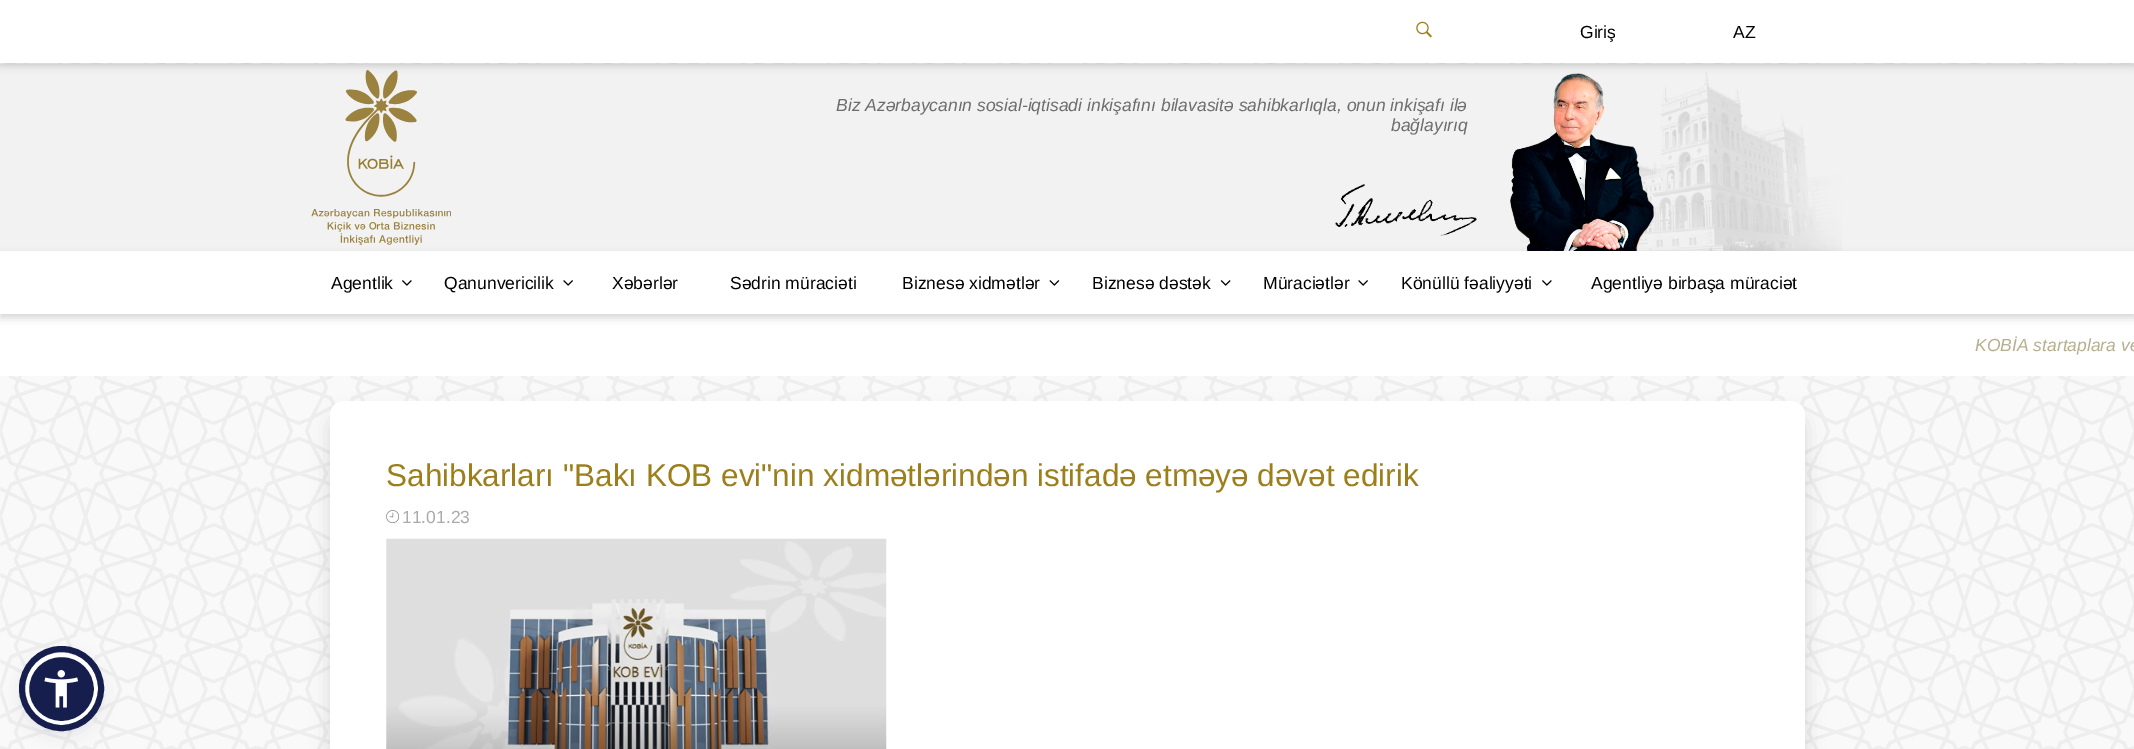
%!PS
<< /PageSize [2134 749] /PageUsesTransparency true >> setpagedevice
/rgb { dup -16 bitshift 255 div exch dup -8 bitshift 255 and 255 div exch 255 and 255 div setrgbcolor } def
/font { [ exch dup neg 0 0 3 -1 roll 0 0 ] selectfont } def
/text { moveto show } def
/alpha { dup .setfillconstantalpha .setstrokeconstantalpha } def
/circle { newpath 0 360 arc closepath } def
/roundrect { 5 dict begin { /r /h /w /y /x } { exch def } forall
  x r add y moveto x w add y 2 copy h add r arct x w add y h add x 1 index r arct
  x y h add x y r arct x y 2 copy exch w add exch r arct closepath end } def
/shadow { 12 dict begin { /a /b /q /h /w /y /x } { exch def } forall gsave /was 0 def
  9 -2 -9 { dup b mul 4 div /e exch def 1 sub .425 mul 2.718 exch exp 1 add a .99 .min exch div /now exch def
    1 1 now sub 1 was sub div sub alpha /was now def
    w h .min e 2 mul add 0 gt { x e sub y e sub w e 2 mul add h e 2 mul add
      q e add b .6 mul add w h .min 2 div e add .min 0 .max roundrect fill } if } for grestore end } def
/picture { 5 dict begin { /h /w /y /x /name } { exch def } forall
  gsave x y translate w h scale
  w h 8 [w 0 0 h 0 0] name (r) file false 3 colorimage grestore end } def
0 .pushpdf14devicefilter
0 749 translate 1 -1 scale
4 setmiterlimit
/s1 { /LiberationSans-Regular 17.5 font 16#000000 rgb } def
/s2 { /LiberationSans-Italic 17.5 font 16#6E6C6C rgb } def
/s3 { /LiberationSans-Italic 17.5 font 16#B7AE8F rgb } def
/s4 { /LiberationSans-Regular 31.5 font 16#9C7E1A rgb } def
/s5 { /LiberationSans-Regular 17.5 font 16#AAAAAA rgb } def
16#F9F9F9 rgb
0 0 2134 749 rectfill
(pic1.raw) 0 63 2134 686 picture
16#F2F2F2 rgb
0 64 2134 187 rectfill
(pic3.raw) 311 70 140 175 picture
(pic4.raw) 1520 72 322 179 picture
(pic5.raw) 1510 73 145 178 picture
16#000000 rgb
0 4 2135 62 0 4 0.16 shadow
16#FFFFFF rgb
0 0 2134 63 rectfill
(pic2.raw) 1416 21 16 17 picture
s1
(Giriş) 1580 38 text
(AZ) 1733 38 text
s2
(Biz Azərbaycanın sosial-iqtisadi inkişafını bilavasitə sahibkarlıqla, onun inkişafı ilə) 836 111 text
(bağlayırıq) 1391 131 text
(pic6.raw) 1335 184 142 52 picture
16#FFFFFF rgb
0 314 2134 62 rectfill
16#000000 rgb
0 255 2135 63 0 4 0.16 shadow
16#FFFFFF rgb
0 251 2134 63 rectfill
s1
(Agentlik) 331 289 text
(pic7.raw) 402 280 10 6 picture
(Qanunvericilik) 444 289 text
(pic8.raw) 563 280 10 6 picture
(Xəbərlər) 612 289 text
(Sədrin müraciəti) 730 289 text
(Biznesə xidmətlər) 902 289 text
(pic9.raw) 1049 280 11 6 picture
(Biznesə dəstək) 1092 289 text
(pic10.raw) 1220 280 11 6 picture
(Müraciətlər) 1263 289 text
(pic8.raw) 1358 280 10 6 picture
(Könüllü fəaliyyəti) 1401 289 text
(pic7.raw) 1542 280 10 6 picture
(Agentliyə birbaşa müraciət) 1591 289 text
s3
(KOBİA startaplara ve) 1975 351 text
16#000000 rgb
330 414 1475 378 14 9.5 0.12 shadow
16#FFFFFF rgb
330 401 1475 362 14 roundrect fill
s4
(Sahibkarları "Bakı KOB evi"nin xidmətlərindən istifadə etməyə dəvət edirik) 386 486 text
(pic11.raw) 386 510 13 13 picture
s5
(11.01.23) 402 523 text
(pic12.raw) 386 538 501 211 picture
16#5D6494 rgb
25 655 73 73 36.5 2.5 0.2 shadow
16#252C61 rgb
25 659 73 72 36 9.5 0.15 shadow
16#161E4D rgb
27 655 69 68 34 roundrect gsave fill grestore
16#FFFFFF rgb
4 setlinewidth
stroke
16#161E4D rgb
6 setlinewidth
61.5 688.5 39.5 circle stroke
(pic13.raw) 44 670 35 38 picture
.poppdf14devicefilter showpage
